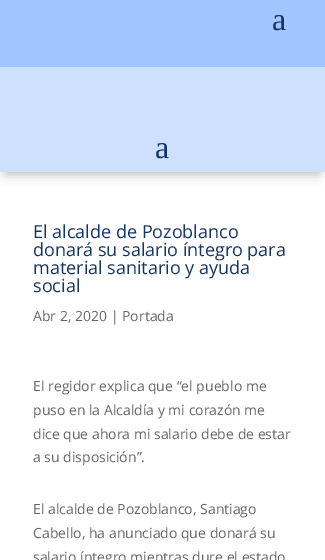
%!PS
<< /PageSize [325 560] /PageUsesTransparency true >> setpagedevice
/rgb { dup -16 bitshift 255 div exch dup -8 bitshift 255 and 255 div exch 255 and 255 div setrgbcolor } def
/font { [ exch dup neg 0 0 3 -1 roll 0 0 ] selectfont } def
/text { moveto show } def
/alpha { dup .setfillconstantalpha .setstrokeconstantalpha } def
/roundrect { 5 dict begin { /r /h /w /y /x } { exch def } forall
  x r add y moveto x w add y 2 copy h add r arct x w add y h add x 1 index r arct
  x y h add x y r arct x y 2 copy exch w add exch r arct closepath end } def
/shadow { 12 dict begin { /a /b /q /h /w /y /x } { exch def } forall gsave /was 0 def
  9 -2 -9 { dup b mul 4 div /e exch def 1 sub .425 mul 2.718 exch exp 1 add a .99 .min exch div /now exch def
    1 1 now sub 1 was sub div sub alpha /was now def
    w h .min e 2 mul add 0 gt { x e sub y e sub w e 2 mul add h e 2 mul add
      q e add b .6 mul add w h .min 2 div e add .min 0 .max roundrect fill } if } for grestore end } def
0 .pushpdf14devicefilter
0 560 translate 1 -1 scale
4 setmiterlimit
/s1 { /LiberationSerif-Regular 32 font 16#143568 rgb } def
/s2 { /OpenSans-Regular 18 font 16#143568 rgb } def
/s3 { /OpenSans-Regular 14 font 16#666666 rgb } def
16#FFFFFF rgb
0 0 325 560 rectfill
16#A1C6FF rgb
0 0 325 67 rectfill
s1
(a) 272 30 text
16#000000 rgb
6 81 313 93 0 6 0.3 shadow
16#CDE1FF rgb
0 67 325 105 rectfill
s1
(a) 155 158 text
s2
(El alcalde de Pozoblanco) 33 238 text
(donará su salario íntegro para) 33 256 text
(material sanitario y ayuda) 33 274 text
(social) 33 292 text
s3
(Abr 2, 2020 | Portada) 33 321 text
(El regidor explica que “el pueblo me) 33 391 text
(puso en la Alcaldía y mi corazón me) 33 415 text
(dice que ahora mi salario debe de estar) 33 439 text
(a su disposición”.) 33 462 text
(El alcalde de Pozoblanco, Santiago) 33 514 text
(Cabello, ha anunciado que donará su) 33 538 text
(salario íntegro mientras dure el estado) 33 562 text
.poppdf14devicefilter showpage
